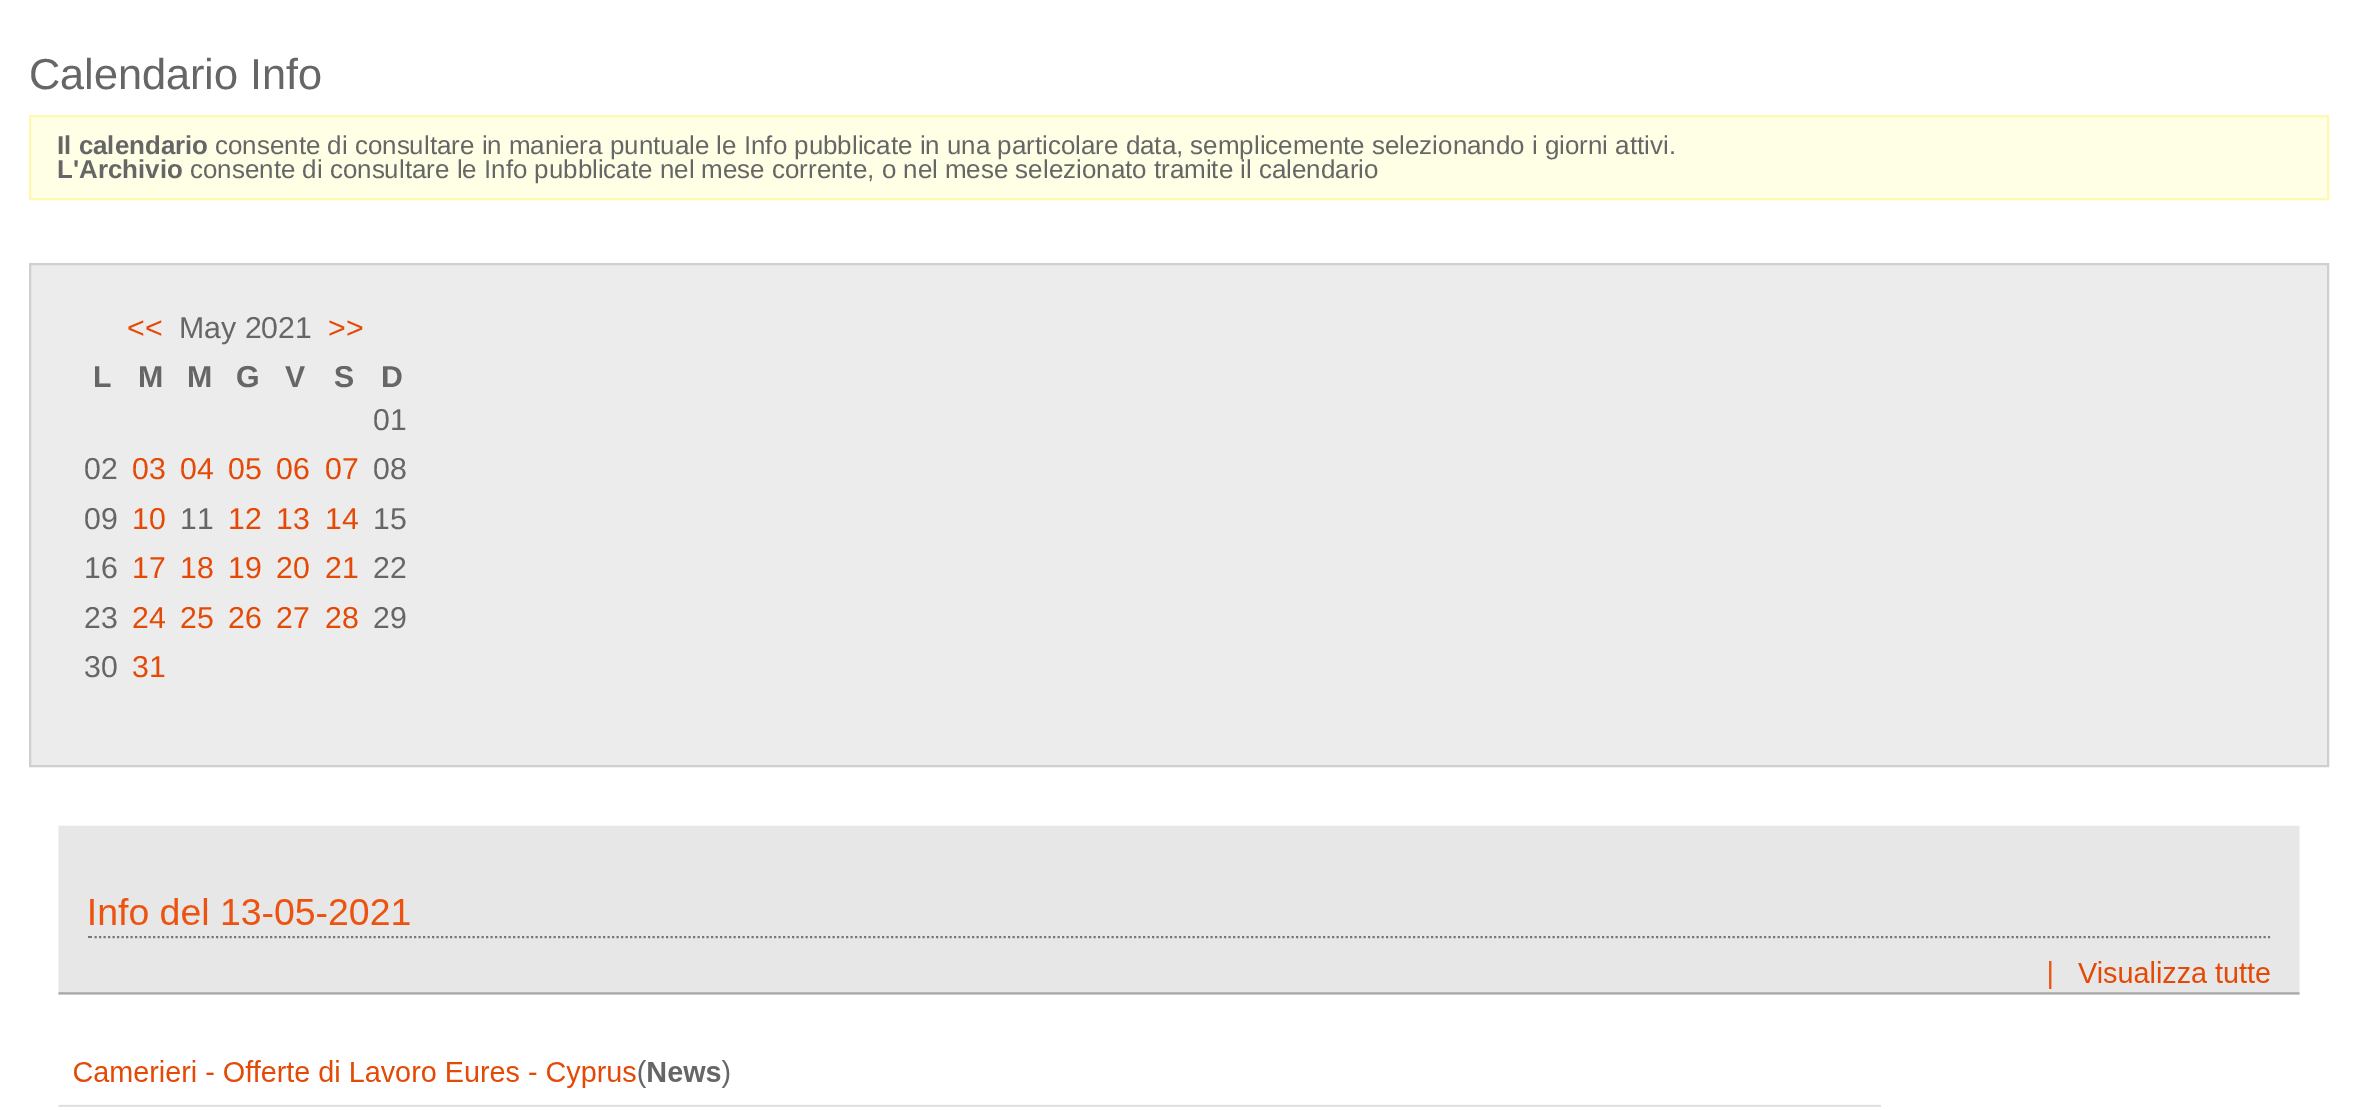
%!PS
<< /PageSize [2357 1110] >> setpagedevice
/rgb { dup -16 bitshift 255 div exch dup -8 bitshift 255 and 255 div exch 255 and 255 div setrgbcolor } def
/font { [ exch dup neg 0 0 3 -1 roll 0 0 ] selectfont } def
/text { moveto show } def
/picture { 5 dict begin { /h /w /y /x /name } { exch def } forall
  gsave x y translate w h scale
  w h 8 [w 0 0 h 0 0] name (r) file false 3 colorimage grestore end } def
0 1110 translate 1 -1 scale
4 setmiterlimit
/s1 { /LiberationSans-Regular 43.25 font 16#666666 rgb } def
/s2 { /LiberationSans-Bold 25.92 font 16#666666 rgb } def
/s3 { /LiberationSans-Regular 25.92 font 16#666666 rgb } def
/s4 { /LiberationSans-Regular 30.25 font 16#E44906 rgb } def
/s5 { /LiberationSans-Regular 30.25 font 16#666666 rgb } def
/s6 { /LiberationSans-Bold 30.25 font 16#666666 rgb } def
16#FFFFFF rgb
0 0 2357 1110 rectfill
s1
(Calendario Info) 29 89 text
16#FFFFE6 rgb
30 116 moveto 2328 116 lineto 2328 199 lineto 30 199 lineto closepath gsave fill grestore
16#FFF8AF rgb
2 setlinewidth
stroke
s2
(Il calendario) 57 154 text
s3
(consente di consultare in maniera puntuale le Info pubblicate in una particolare data, semplicemente selezionando i giorni attivi.) 215 154 text
s2
(L'Archivio) 57 178 text
s3
(consente di consultare le Info pubblicate nel mese corrente, o nel mese selezionato tramite il calendario) 190 178 text
16#ECECEC rgb
30 264 moveto 2328 264 lineto 2328 766 lineto 30 766 lineto closepath gsave fill grestore
16#CFCFCF rgb
stroke
s4
(<<) 127 338 text
s5
(May 2021) 179 338 text
s4
(>>) 328 338 text
s6
(L) 93 387 text
(M) 138 387 text
(M) 187 387 text
(G) 236 387 text
(V) 285 387 text
(S) 334 387 text
(D) 381 387 text
s5
(01) 373 430 text
(02) 84 479 text
s4
(03) 132 479 text
(04) 180 479 text
(05) 228 479 text
(06) 276 479 text
(07) 325 479 text
s5
(08) 373 479 text
(09) 84 529 text
s4
(10) 132 529 text
s5
(11) 180 529 text
s4
(12) 228 529 text
(13) 276 529 text
(14) 325 529 text
s5
(15) 373 529 text
(16) 84 578 text
s4
(17) 132 578 text
(18) 180 578 text
(19) 228 578 text
(20) 276 578 text
(21) 325 578 text
s5
(22) 373 578 text
(23) 84 628 text
s4
(24) 132 628 text
(25) 180 628 text
(26) 228 628 text
(27) 276 628 text
(28) 325 628 text
s5
(29) 373 628 text
(30) 84 677 text
s4
(31) 132 677 text
(pic1.raw) 58 825 2242 282 picture
showpage
